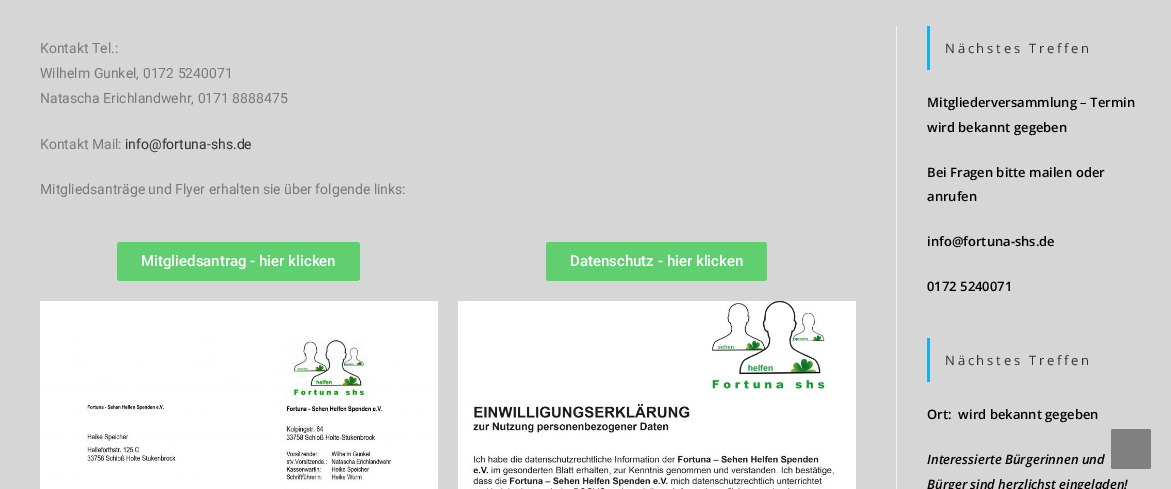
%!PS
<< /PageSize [1171 489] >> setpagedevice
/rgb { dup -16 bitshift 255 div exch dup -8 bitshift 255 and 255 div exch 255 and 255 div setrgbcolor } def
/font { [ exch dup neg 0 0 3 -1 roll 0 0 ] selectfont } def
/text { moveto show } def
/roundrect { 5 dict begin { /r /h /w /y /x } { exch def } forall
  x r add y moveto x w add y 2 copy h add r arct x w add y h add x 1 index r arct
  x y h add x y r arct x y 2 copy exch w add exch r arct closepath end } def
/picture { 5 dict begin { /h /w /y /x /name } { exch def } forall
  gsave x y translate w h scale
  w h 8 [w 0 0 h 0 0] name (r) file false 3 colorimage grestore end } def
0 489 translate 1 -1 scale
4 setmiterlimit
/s1 { /Roboto-Regular 14 font 16#7A7A7A rgb } def
/s2 { /Roboto-Regular 14 font 16#333333 rgb } def
/s3 { /Roboto-Medium 15 font 16#FFFFFF rgb } def
/s4 { /OpenSans-SemiBold 13 font 16#000000 rgb } def
/s5 { /OpenSans-SemiBoldItalic 13 font 16#000000 rgb } def
16#D6D6D6 rgb
0 0 1171 489 rectfill
16#F1F1F1 rgb
896 26 1 463 rectfill
s1
(Kontakt Tel.:) 40 53 text
(Wilhelm Gunkel, 0172 5240071) 40 78 text
(Natascha Erichlandwehr, 0171 8888475) 40 103 text
(Kontakt Mail:) 40 149 text
s2
(info@fortuna-shs.de) 125 149 text
s1
(Mitgliedsanträge und Flyer erhalten sie über folgende links:) 40 194 text
16#61CE70 rgb
117 242 243 39 3 roundrect fill
s3
(Mitgliedsantrag - hier klicken) 141 266 text
(pic1.raw) 40 301 398 188 picture
16#61CE70 rgb
546 242 221 39 3 roundrect fill
s3
(Datenschutz - hier klicken) 570 266 text
(pic2.raw) 458 301 398 188 picture
16#13AFF0 rgb
927 26 3 44 rectfill
/OpenSans-Regular 13 font
16#333333 rgb
945 53 moveto 2.75 0 (Nächstes Treffen) ashow
s4
(Mitgliederversammlung – Termin) 927 107 text
(wird bekannt gegeben) 927 132 text
(Bei Fragen bitte mailen oder) 927 177 text
(anrufen) 927 201 text
(info@fortuna-shs.de) 927 246 text
(0172 5240071) 927 291 text
16#13AFF0 rgb
927 338 3 44 rectfill
/OpenSans-Regular 13 font
16#333333 rgb
945 365 moveto 2.75 0 (Nächstes Treffen) ashow
s4
(Ort:  wird bekannt gegeben) 927 419 text
s5
(Interessierte Bürgerinnen und) 927 464 text
(Bürger sind herzlichst eingeladen!) 927 489 text
16#808080 rgb
1111 429 40 40 2 roundrect fill
showpage
